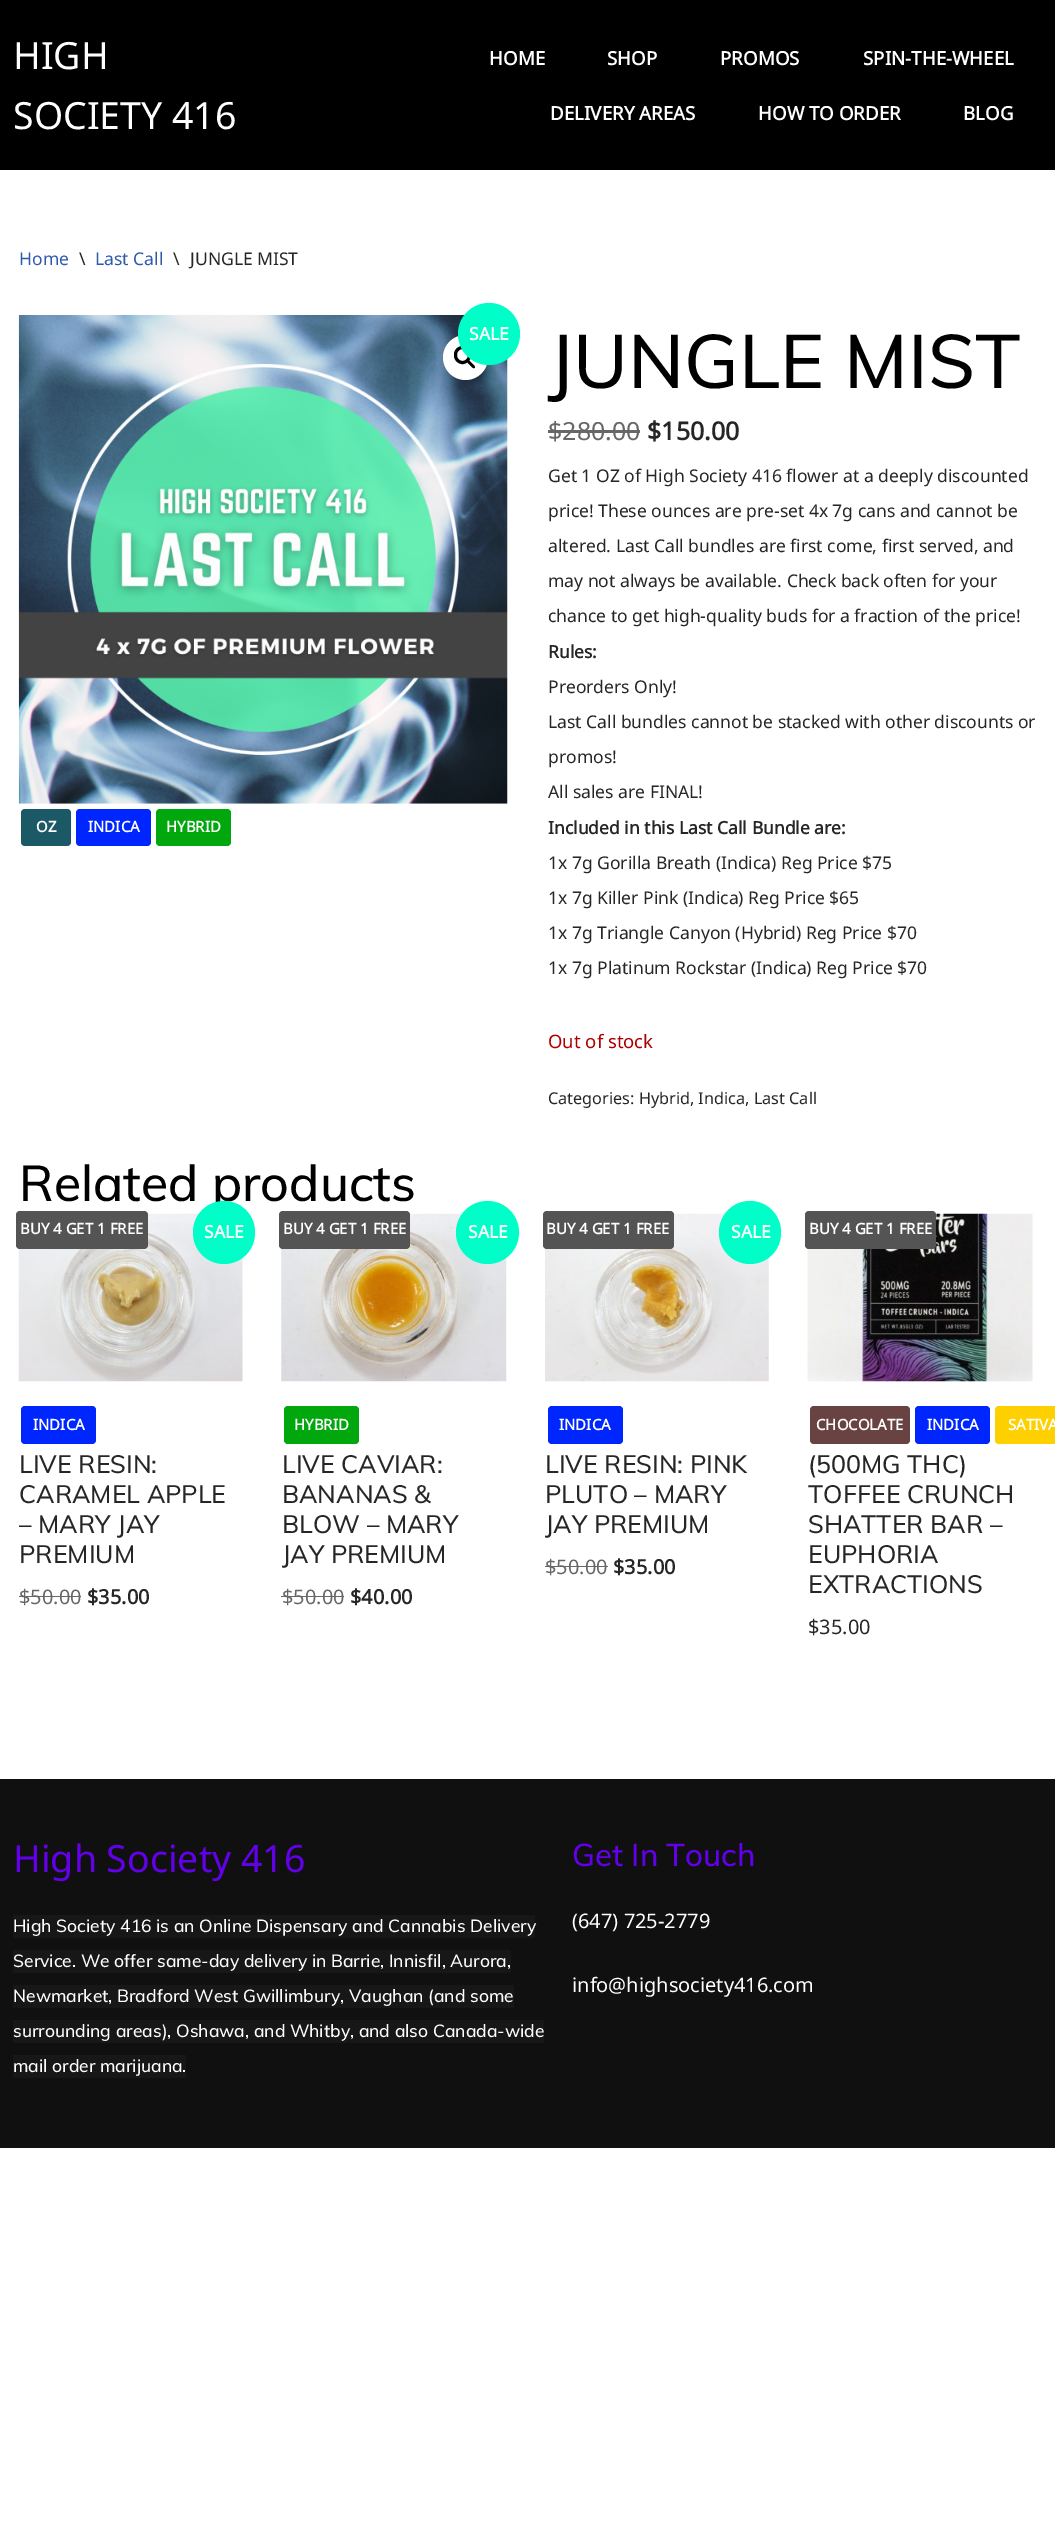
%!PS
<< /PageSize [1055 2525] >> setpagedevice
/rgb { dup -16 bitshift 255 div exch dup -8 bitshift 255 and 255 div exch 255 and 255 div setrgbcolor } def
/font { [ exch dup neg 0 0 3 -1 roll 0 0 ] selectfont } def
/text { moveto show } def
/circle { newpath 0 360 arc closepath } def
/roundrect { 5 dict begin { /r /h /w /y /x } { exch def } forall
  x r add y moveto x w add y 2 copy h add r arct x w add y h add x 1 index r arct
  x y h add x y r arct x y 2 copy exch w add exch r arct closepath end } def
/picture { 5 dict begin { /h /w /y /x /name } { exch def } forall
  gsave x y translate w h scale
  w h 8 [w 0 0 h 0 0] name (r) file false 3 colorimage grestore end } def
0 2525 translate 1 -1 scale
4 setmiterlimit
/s1 { /NotoSans-Regular 37.5 font 16#FFFFFF rgb } def
/s2 { /NotoSans-Bold 18.75 font 16#FFFFFF rgb } def
/s3 { /NotoSans-Regular 17.5 font 16#2F5AAE rgb } def
/s4 { /NotoSans-Regular 17.5 font 16#272626 rgb } def
/s5 { /NotoSans-Bold 17.5 font 16#FFFFFF rgb } def
/s6 { /NotoSans-Bold 15 font 16#FFFFFF rgb } def
/s7 { /Muli-Medium 75 font 16#000000 rgb } def
/s8 { /NotoSans-Regular 25 font 16#686767 rgb } def
/s9 { /NotoSans-Bold 25 font 16#272626 rgb } def
/s10 { /NotoSans-Bold 17.5 font 16#272626 rgb } def
/s11 { /NotoSans-Regular 18.5 font 16#AA0000 rgb } def
/s12 { /NotoSans-Regular 16.25 font 16#272626 rgb } def
/s13 { /Muli-Medium 50 font 16#000000 rgb } def
/s14 { /Muli-Medium 25 font 16#272626 rgb } def
/s15 { /NotoSans-Regular 20 font 16#686767 rgb } def
/s16 { /NotoSans-Bold 20 font 16#272626 rgb } def
/s17 { /NotoSans-Regular 20 font 16#272626 rgb } def
/s18 { /NotoSans-Regular 37.5 font 16#6200EA rgb } def
/s19 { /Muli-Medium 17.5 font 16#FFFFFF rgb } def
/s20 { /Muli-Medium 31.25 font 16#6200EA rgb } def
/s21 { /NotoSans-Regular 20 font 16#FFFFFF rgb } def
16#FFFFFF rgb
0 0 1055 2525 rectfill
16#000000 rgb
0 0 1055 170 rectfill
s1
(HIGH) 13 69 text
(SOCIETY 416) 13 129 text
s2
(HOME) 489 65 text
(SHOP) 607 65 text
(PROMOS) 720 65 text
(SPIN-THE-WHEEL) 863 65 text
(DELIVERY AREAS) 550 120 text
(HOW TO ORDER) 758 120 text
(BLOG) 963 120 text
s3
(Home) 19 265 text
s4
(\\) 79 265 text
s3
(Last Call) 95 265 text
s4
(\\) 173 265 text
(JUNGLE MIST) 190 265 text
(pic1.raw) 18 315 490 489 picture
16#FFFFFF rgb
465.5 357.5 22.5 circle fill
16#000000 rgb
3 setlinewidth
455.5 347.5 14 15 7 roundrect stroke
467.5 360.5 moveto 469 359.5 471 362.5 472 363.5 curveto 472.5 364 476 366.5 474.5 368 curveto 473 369 471 366 470 365 curveto 469.5 364.5 466 362 467.5 360.5 curveto closepath fill
16#00FFC8 rgb
489 334 31 circle fill
s5
(SALE) 469 340 text
16#1B5966 rgb
21 809 50 37 4 roundrect fill
s6
(OZ) 36 832 text
16#0026FF rgb
76 809 75 37 4 roundrect fill
s6
(INDICA) 88 832 text
16#00A80E rgb
156 809 75 37 4 roundrect fill
s6
(HYBRID) 166 832 text
s7
(JUNGLE MIST) 548 388 text
s8
($280.00) 548 440 text
548 430 92 3 rectfill
s9
($150.00) 647 440 text
s4
(Get 1 OZ of High Society 416 flower at a deeply discounted) 548 482 text
(price! These ounces are pre-set 4x 7g cans and cannot be) 548 517 text
(altered. Last Call bundles are first come, first served, and) 548 552 text
(may not always be available. Check back often for your) 548 587 text
(chance to get high-quality buds for a fraction of the price!) 548 622 text
s10
(Rules:) 548 658 text
s4
(Preorders Only!) 548 693 text
(Last Call bundles cannot be stacked with other discounts or) 548 728 text
(promos!) 548 763 text
(All sales are FINAL!) 548 798 text
s10
(Included in this Last Call Bundle are:) 548 834 text
s4
(1x 7g Gorilla Breath \(Indica\) Reg Price $75) 548 869 text
(1x 7g Killer Pink \(Indica\) Reg Price $65) 548 904 text
(1x 7g Triangle Canyon \(Hybrid\) Reg Price $70) 548 939 text
(1x 7g Platinum Rockstar \(Indica\) Reg Price $70) 548 974 text
s11
(Out of stock) 548 1048 text
s12
(Categories: Hybrid, Indica, Last Call) 548 1104 text
s13
(Related products) 19 1201 text
(pic2.raw) 18 1213 225 169 picture
16#545454 rgb
16 1211 132 38 4 roundrect fill
s6
(BUY 4 GET 1 FREE) 20 1234 text
16#00FFC8 rgb
193 1201 62 63 31 roundrect fill
s5
(SALE) 204 1238 text
16#0026FF rgb
21 1406 75 38 4 roundrect fill
s6
(INDICA) 33 1430 text
s14
(LIVE RESIN:) 19 1473 text
(CARAMEL APPLE) 19 1503 text
(– MARY JAY) 19 1533 text
(PREMIUM) 19 1563 text
s15
($50.00) 19 1604 text
19 1596 62 1 rectfill
s16
($35.00) 87 1604 text
(pic3.raw) 281 1213 226 169 picture
16#545454 rgb
279 1211 131 38 4 roundrect fill
s6
(BUY 4 GET 1 FREE) 283 1234 text
16#00FFC8 rgb
487.5 1232.5 31.5 circle fill
s5
(SALE) 468 1238 text
16#00A80E rgb
284 1406 75 38 4 roundrect fill
s6
(HYBRID) 294 1430 text
s14
(LIVE CAVIAR:) 282 1473 text
(BANANAS &) 282 1503 text
(BLOW – MARY) 282 1533 text
(JAY PREMIUM) 282 1563 text
s15
($50.00) 282 1604 text
281 1596 63 1 rectfill
s16
($40.00) 350 1604 text
(pic4.raw) 545 1213 224 169 picture
16#545454 rgb
543 1211 131 38 4 roundrect fill
s6
(BUY 4 GET 1 FREE) 546 1234 text
16#00FFC8 rgb
719 1201 62 63 31 roundrect fill
s5
(SALE) 731 1238 text
16#0026FF rgb
548 1406 75 38 4 roundrect fill
s6
(INDICA) 559 1430 text
s14
(LIVE RESIN: PINK) 545 1473 text
(PLUTO – MARY) 545 1503 text
(JAY PREMIUM) 545 1533 text
s15
($50.00) 545 1574 text
545 1566 63 1 rectfill
s16
($35.00) 613 1574 text
(pic5.raw) 807 1213 226 169 picture
16#545454 rgb
805 1211 131 38 4 roundrect fill
s6
(BUY 4 GET 1 FREE) 809 1234 text
16#694242 rgb
810 1406 100 38 4 roundrect fill
s6
(CHOCOLATE) 816 1430 text
16#0026FF rgb
915 1406 75 38 4 roundrect fill
s6
(INDICA) 927 1430 text
16#FFD000 rgb
995 1406 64 38 4 roundrect fill
s6
(SATIVA) 1008 1430 text
s14
(\(500MG THC\)) 808 1473 text
(TOFFEE CRUNCH) 808 1503 text
(SHATTER BAR –) 808 1533 text
(EUPHORIA) 808 1563 text
(EXTRACTIONS) 808 1593 text
s17
($35.00) 808 1634 text
16#101010 rgb
0 1779 1055 369 rectfill
s18
(High Society 416) 13 1872 text
16#171717 rgb
13 1915 522 23 rectfill
s19
(High Society 416 is an Online Dispensary and Cannabis Delivery) 13 1932 text
16#171717 rgb
13 1950 498 23 rectfill
s19
(Service. We offer same-day delivery in Barrie, Innisfil, Aurora,) 13 1967 text
16#171717 rgb
13 1985 501 23 rectfill
s19
(Newmarket, Bradford West Gwillimbury, Vaughan \(and some) 13 2002 text
16#171717 rgb
13 2020 531 23 rectfill
s19
(surrounding areas\), Oshawa, and Whitby, and also Canada-wide) 13 2037 text
16#171717 rgb
13 2055 173 23 rectfill
s19
(mail order marijuana.) 13 2072 text
s20
(Get In Touch) 572 1866 text
s21
(\(647\) 725-2779) 572 1928 text
(info@highsociety416.com) 572 1992 text
showpage
